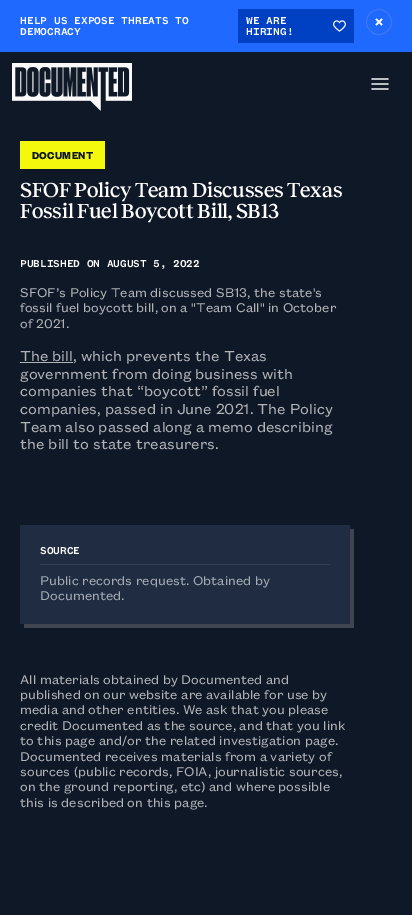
%!PS
<< /PageSize [412 915] >> setpagedevice
/rgb { dup -16 bitshift 255 div exch dup -8 bitshift 255 and 255 div exch 255 and 255 div setrgbcolor } def
/font { [ exch dup neg 0 0 3 -1 roll 0 0 ] selectfont } def
/text { moveto show } def
/circle { newpath 0 360 arc closepath } def
/picture { 5 dict begin { /h /w /y /x /name } { exch def } forall
  gsave x y translate w h scale
  w h 8 [w 0 0 h 0 0] name (r) file false 3 colorimage grestore end } def
0 915 translate 1 -1 scale
4 setmiterlimit
/s1 { /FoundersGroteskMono-Medium 11 font 16#FFFFFF rgb } def
/s2 { /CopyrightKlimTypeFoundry-Regular 14 font 16#B1B3B7 rgb } def
/s3 { /CopyrightKlimTypeFoundry-Regular 16 font 16#B1B3B7 rgb } def
/s4 { /CopyrightKlimTypeFoundry-Regular 14 font 16#A5ABB3 rgb } def
16#0F1827 rgb
0 0 412 915 rectfill
16#1F69FF rgb
0 0 412 52 rectfill
s1
(HELP US EXPOSE THREATS TO) 20 24 text
(DEMOCRACY) 20 35 text
16#0040C3 rgb
238 9 116 34 rectfill
s1
(WE ARE) 246 24 text
(pic1.raw) 333 20 13 12 picture
(HIRING!) 246 35 text
16#3C78F1 rgb
379 22 12.5 circle stroke
16#FFFFFF rgb
1.6 setlinewidth
376 19 moveto 382 25 lineto 382 19 moveto 376 25 lineto stroke
(pic2.raw) 12 63 120 48 picture
(pic3.raw) 371 78 18 12 picture
16#F3F80C rgb
20 141 85 28 rectfill
/CopyrightKlimTypeFoundry-Bold 11 font
16#0F1827 rgb
32 159 moveto 0.25 0 (DOCUMENT) ashow
/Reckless-Medium 21 font
16#FFFFFF rgb
20 197 moveto -0.2 0 (SFOF Policy Team Discusses Texas) ashow
20 218 moveto -0.2 0 (Fossil Fuel Boycott Bill, SB13) ashow
/FoundersGroteskMono-Medium 11 font
20 267 moveto -0.1 0 (PUBLISHED ON AUGUST 5, 2022) ashow
s2
(SFOF’s Policy Team discussed SB13, the state's) 20 297 text
(fossil fuel boycott bill, on a "Team Call" in October) 20 312 text
(of 2021.) 20 328 text
20 362 53 1 rectfill
s3
(The bill, which prevents the Texas) 20 361 text
(government from doing business with) 20 379 text
(companies that “boycott” fossil fuel) 20 396 text
(companies, passed in June 2021. The Policy) 20 414 text
(Team also passed along a memo describing) 20 432 text
(the bill to state treasurers.) 20 449 text
16#3F4652 rgb
24 624 moveto 24 628 lineto 354 628 lineto 354 529 lineto 350 529 lineto 350 624 lineto closepath fill
16#1F2C41 rgb
20 525 330 99 rectfill
16#354154 rgb
40 564 290 1 rectfill
/FoundersGroteskMono-Medium 11 font
16#FFFFFF rgb
40 554 moveto -0.1 0 (SOURCE) ashow
s4
(Public records request. Obtained by) 40 585 text
(Documented.) 40 600 text
s2
(All materials obtained by Documented and) 20 684 text
(published on our website are available for use by) 20 699 text
(media and other entities. We ask that you please) 20 714 text
(credit Documented as the source, and that you link) 20 730 text
(to this page and/or the related investigation page.) 20 745 text
(Documented receives materials from a variety of) 20 761 text
(sources \(public records, FOIA, journalistic sources,) 20 776 text
(on the ground reporting, etc\) and where possible) 20 791 text
(this is described on this page.) 20 807 text
showpage
